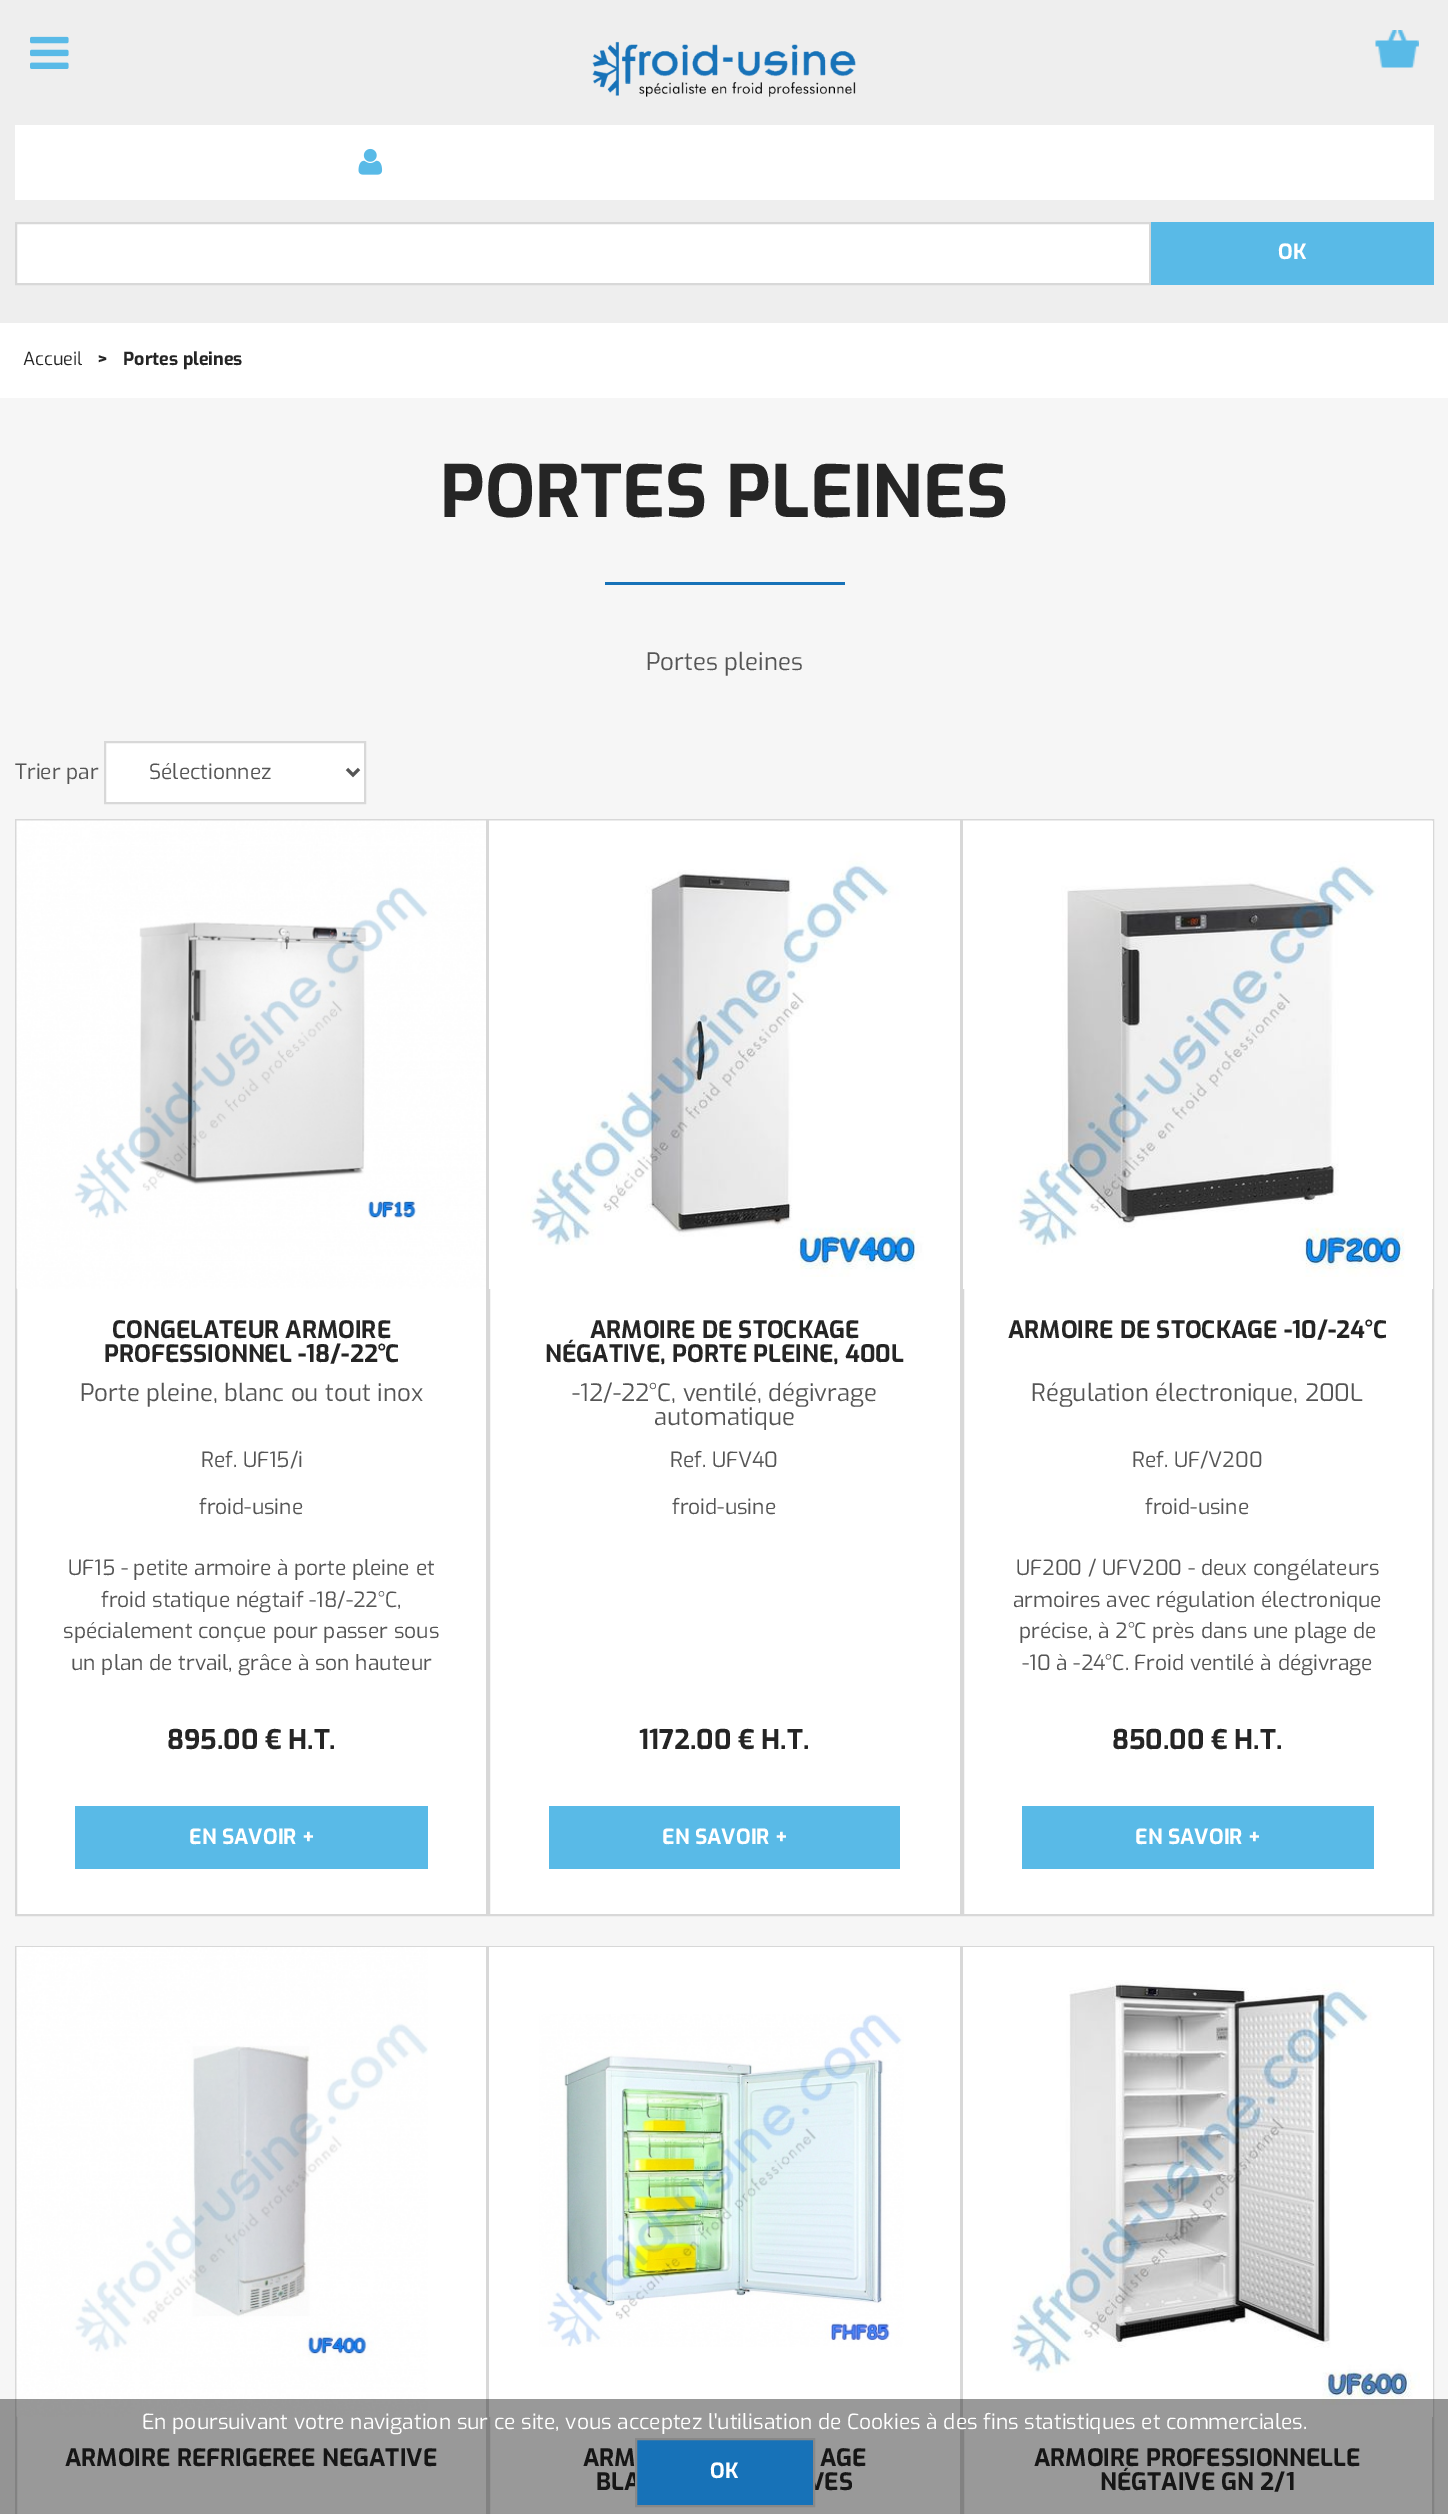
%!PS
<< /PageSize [1448 2514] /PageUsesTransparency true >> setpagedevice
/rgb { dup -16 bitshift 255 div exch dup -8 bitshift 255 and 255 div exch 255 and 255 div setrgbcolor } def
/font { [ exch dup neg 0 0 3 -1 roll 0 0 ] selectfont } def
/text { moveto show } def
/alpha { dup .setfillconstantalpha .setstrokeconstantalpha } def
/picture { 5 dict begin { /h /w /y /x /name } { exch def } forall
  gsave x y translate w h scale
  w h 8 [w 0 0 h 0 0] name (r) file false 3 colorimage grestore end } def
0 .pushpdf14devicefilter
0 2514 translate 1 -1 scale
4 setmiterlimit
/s1 { /Exo-Bold 21 font 16#FFFFFF rgb } def
/s2 { /Exo-Regular 18 font 16#252525 rgb } def
/s3 { /Exo-Bold 18 font 16#252525 rgb } def
/s4 { /Exo-Bold 72 font 16#252525 rgb } def
/s5 { /Exo-Regular 24 font 16#555555 rgb } def
/s6 { /Exo-Regular 21 font 16#555555 rgb } def
/s7 { /Exo-Bold 24 font 16#252525 rgb } def
/s8 { /Exo-Bold 27 font 16#252525 rgb } def
/s9 { /Exo-Regular 21 font 16#FFFFFF rgb } def
16#F6F6F6 rgb
0 0 1448 2514 rectfill
16#EEEEEE rgb
0 0 1448 323 rectfill
16#FFFFFF rgb
15 125 1419 75 rectfill
(pic1.raw) 1375 30 44 38 picture
(pic2.raw) 358 148 25 27 picture
(pic3.raw) 30 36 39 33 picture
(pic4.raw) 592 41 264 56 picture
16 223 moveto 1150 223 lineto 1150 284 lineto 16 284 lineto closepath gsave fill grestore
16#D8D8D8 rgb
2 setlinewidth
stroke
16#59BAE7 rgb
1151 222 283 63 rectfill
s1
(OK) 1278 259 text
0 323 1448 75 rectfill
s2
(Accueil) 23 365 text
s3
(>) 97 365 text
(Portes pleines) 123 365 text
s4
(PORTES PLEINES) 440 517 text
16#1772B8 rgb
605 582 240 3 rectfill
s5
(Portes pleines) 646 670 text
s6
(Trier par) 15 779 text
16#FFFFFF rgb
105 742 moveto 365 742 lineto 365 803 lineto 105 803 lineto closepath gsave fill grestore
16#D8D8D8 rgb
stroke
16#555555 rgb
3 setlinewidth
347 769 moveto 353 775 lineto 359 769 lineto stroke
(Sélectionnez) 149 779 text
16#FFFFFF rgb
17 1288 469 626 rectfill
16#D8D8D8 rgb
2 setlinewidth
16 820 471 1095 rectstroke
(pic5.raw) 16 820 470 469 picture
gsave
62 1319 379 48 rectclip
s7
(CONGÉLATEUR ARMOIRE) 112 1338 text
grestore
s7
(PROFESSIONNEL -18/-22°C) 104 1362 text
s5
(Porte pleine, blanc ou tout inox) 80 1401 text
s6
(Ref. UF15/i) 201 1467 text
(froid-usine) 199 1514 text
(UF15 - petite armoire à porte pleine et) 68 1575 text
(froid statique négtaif -18/-22°C,) 101 1607 text
(spécialement conçue pour passer sous) 63 1638 text
(un plan de trvail, grâce à son hauteur) 71 1670 text
s8
(895.00 € H.T.) 167 1749 text
16#59BAE7 rgb
75 1806 353 63 rectfill
s1
(EN SAVOIR +) 189 1844 text
490 1289 470 625 rectfill
16#D8D8D8 rgb
489 820 472 1095 rectstroke
16#FFFFFF rgb
489 1277 471 12 rectfill
(pic6.raw) 489 820 471 457 picture
s7
(ARMOIRE DE STOCKAGE) 590 1338 text
(NÉGATIVE, PORTE PLEINE, 400L) 545 1362 text
s5
(-12/-22°C, ventilé, dégivrage) 572 1401 text
gsave
534 1382 381 48 rectclip
(automatique) 654 1425 text
grestore
s6
(Ref. UFV40) 670 1467 text
(froid-usine) 672 1514 text
s8
(1172.00 € H.T.) 639 1749 text
16#59BAE7 rgb
549 1806 351 63 rectfill
s1
(EN SAVOIR +) 662 1844 text
964 1289 468 625 rectfill
16#D8D8D8 rgb
963 820 470 1095 rectstroke
16#FFFFFF rgb
963 821 470 468 rectfill
(pic7.raw) 963 820 470 457 picture
s7
(ARMOIRE DE STOCKAGE -10/-24°C) 1008 1338 text
s5
(Régulation électronique, 200L) 1031 1401 text
s6
(Ref. UF/V200) 1132 1467 text
(froid-usine) 1145 1514 text
(UF200 / UFV200 - deux congélateurs) 1016 1575 text
(armoires avec régulation électronique) 1013 1607 text
(précise, à 2°C près dans une plage de) 1019 1638 text
(-10 à -24°C. Froid ventilé à dégivrage) 1022 1670 text
s8
(850.00 € H.T.) 1112 1749 text
16#59BAE7 rgb
1022 1806 352 63 rectfill
s1
(EN SAVOIR +) 1135 1844 text
17 2417 469 97 rectfill
16#D8D8D8 rgb
16 1947 471 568 rectstroke
16#FFFFFF rgb
17 1947 469 470 rectfill
(pic8.raw) 16 1947 412 470 picture
gsave
62 2447 379 48 rectclip
s7
(ARMOIRE RÉFRIGÉRÉE NÉGATIVE) 65 2466 text
grestore
490 2417 470 97 rectfill
16#D8D8D8 rgb
489 1947 472 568 rectstroke
16#FFFFFF rgb
489 1947 471 470 rectfill
(pic9.raw) 539 2014 365 333 picture
s7
(ARM) 583 2466 text
(AGE) 820 2466 text
(BLA) 596 2490 text
(VES) 808 2490 text
16#FFFFFF rgb
964 2417 468 97 rectfill
16#D8D8D8 rgb
963 1947 470 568 rectstroke
16#FFFFFF rgb
963 1947 470 470 rectfill
(pic10.raw) 1011 1980 409 425 picture
s7
(ARMOIRE PROFESSIONNELLE) 1034 2466 text
(NÉGTAIVE GN 2/1) 1100 2490 text
0.4 alpha
16#000000 rgb
0 2399 1448 115 rectfill
1 alpha
s9
(En poursuivant votre navigation sur ce site, vous acceptez l'utilisation de Cookies à des fins statistiques et commerciales.) 142 2429 text
16#1772B8 rgb
636 2439 moveto 814 2439 lineto 814 2506 lineto 636 2506 lineto closepath gsave fill grestore
16#888888 rgb
stroke
s1
(OK) 710 2478 text
.poppdf14devicefilter showpage
